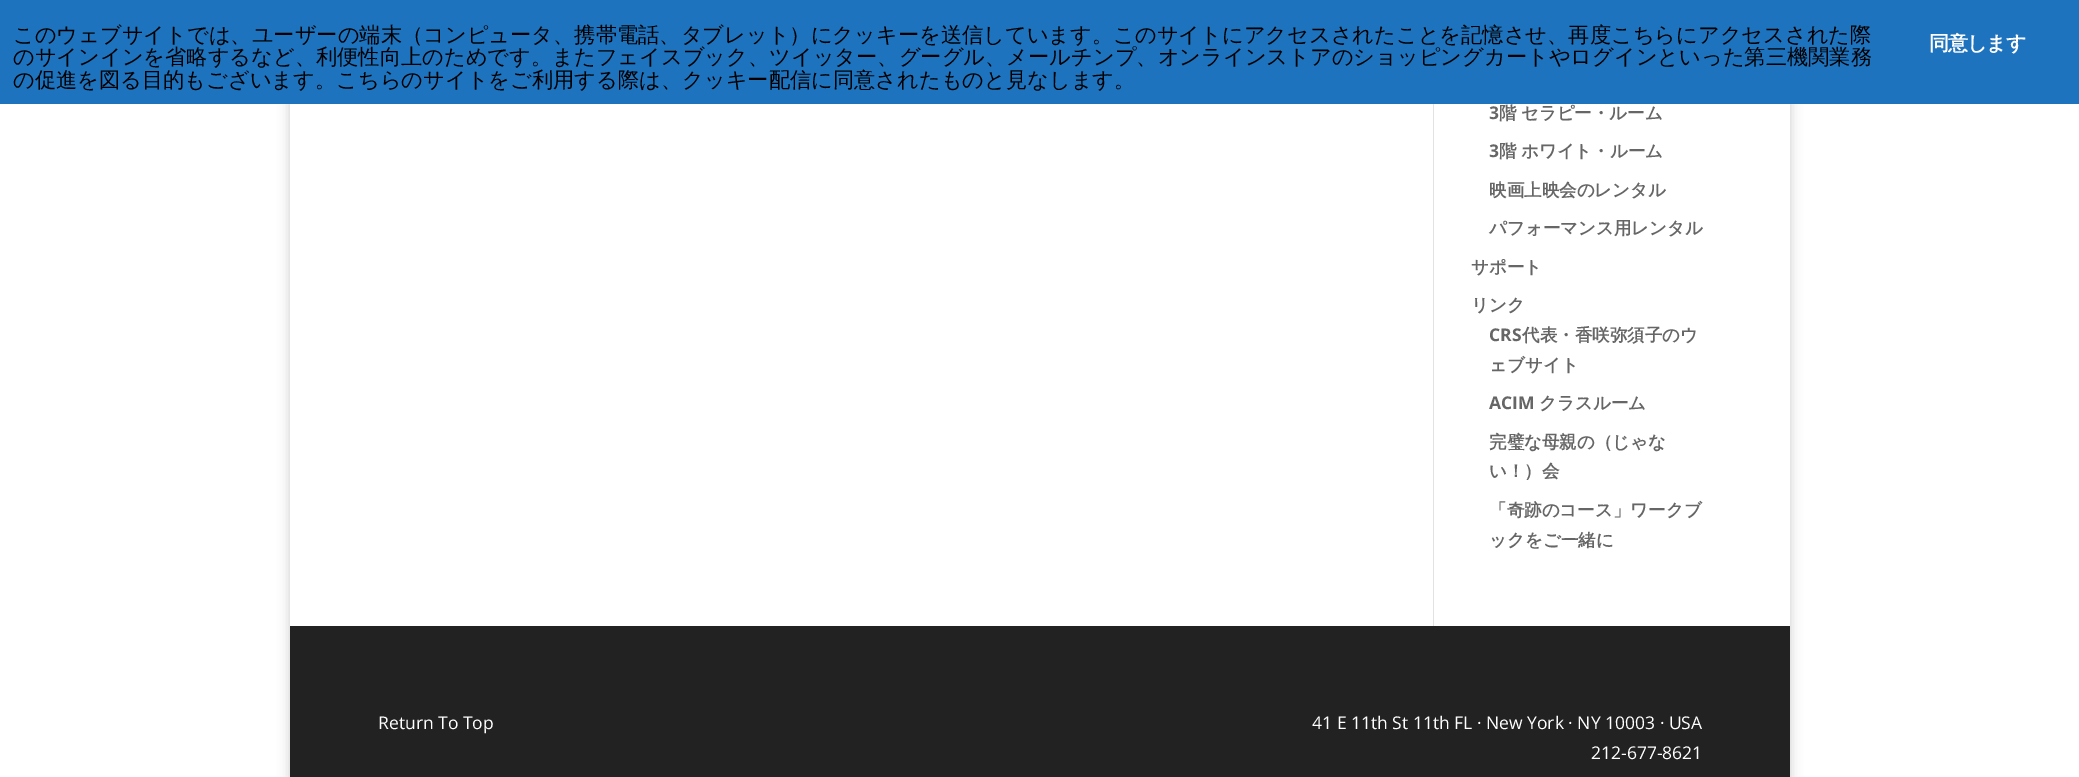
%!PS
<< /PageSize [2079 777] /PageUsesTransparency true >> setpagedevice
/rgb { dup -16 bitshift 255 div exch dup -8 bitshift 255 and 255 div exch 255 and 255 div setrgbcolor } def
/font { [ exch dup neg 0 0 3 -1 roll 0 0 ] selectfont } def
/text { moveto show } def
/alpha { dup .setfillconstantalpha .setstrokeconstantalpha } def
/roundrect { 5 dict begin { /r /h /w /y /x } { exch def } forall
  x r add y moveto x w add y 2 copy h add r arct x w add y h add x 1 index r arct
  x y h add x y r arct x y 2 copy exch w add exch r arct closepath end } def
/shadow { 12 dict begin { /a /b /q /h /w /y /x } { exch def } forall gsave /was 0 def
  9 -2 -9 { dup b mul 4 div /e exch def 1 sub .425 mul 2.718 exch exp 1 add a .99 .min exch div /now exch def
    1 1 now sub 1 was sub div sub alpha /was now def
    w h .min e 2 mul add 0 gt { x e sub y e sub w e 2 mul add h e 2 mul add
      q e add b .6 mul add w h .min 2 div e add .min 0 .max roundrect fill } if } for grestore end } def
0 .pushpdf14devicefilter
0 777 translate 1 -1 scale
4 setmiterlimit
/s1 { /WenQuanYiZenHei-Medium 21.25 font 16#000000 rgb } def
/s2 { /OpenSans-Bold 17.5 font 16#666666 rgb } def
/s3 { /WenQuanYiZenHei-Bold 17.5 font 16#666666 rgb } def
/s4 { /OpenSans-Regular 17.5 font 16#FFFFFF rgb } def
16#FFFFFF rgb
0 0 2079 777 rectfill
gsave
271 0 moveto 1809 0 lineto 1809 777 lineto 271 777 lineto closepath 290 -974 moveto 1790 -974 lineto 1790 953 lineto 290 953 lineto closepath eoclip newpath
16#000000 rgb
290 -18 1500 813 0 6 0.2 shadow
grestore
16#1E73BE rgb
0 0 2079 104 rectfill
s1
(このウェブサイトでは、ユーザーの端末（コンピュータ、携帯電話、タブレット）にクッキーを送信しています。このサイトにアクセスされたことを記憶させ、再度こちらにアクセスされた際) 13 42 text
(のサインインを省略するなど、利便性向上のためです。またフェイスブック、ツイッター、グーグル、メールチンプ、オンラインストアのショッピングカートやログインといった第三機関業務) 13 64 text
(の促進を図る目的もございます。こちらのサイトをご利用する際は、クッキー配信に同意されたものと見なします。) 13 87 text
/WenQuanYiZenHei-Bold 20 font
16#FFFFFF rgb
1929 50 moveto -1 0 (同意します) ashow
16#E2E2E2 rgb
1433 104 1 522 rectfill
s2
(3) 1489 119 text
/WenQuanYiZenHei-Bold 17.5 font
1499 119 moveto -1 0 32 (階 セラピー・ルーム) widthshow
s2
(3) 1489 157 text
/WenQuanYiZenHei-Bold 17.5 font
1499 157 moveto -1 0 32 (階 ホワイト・ルーム) widthshow
(映画上映会のレンタル) 1489 196 text
(パフォーマンス用レンタル) 1489 234 text
(サポート) 1471 273 text
(リンク) 1471 311 text
s2
(CRS) 1489 341 text
s3
(代表・香咲弥須子のウ) 1522 341 text
(ェブサイト) 1489 371 text
s2
(ACIM) 1489 409 text
s3
(クラスルーム) 1539 409 text
(完璧な母親の（じゃな) 1489 448 text
(い！）会) 1489 477 text
(「奇跡のコース」ワークブ) 1489 516 text
(ックをご一緒に) 1489 546 text
16#222222 rgb
290 626 1500 151 rectfill
s4
(Return To Top) 378 729 text
(41 E 11th St 11th FL · New York · NY 10003 · USA) 1312 729 text
(212-677-8621) 1591 759 text
.poppdf14devicefilter showpage
